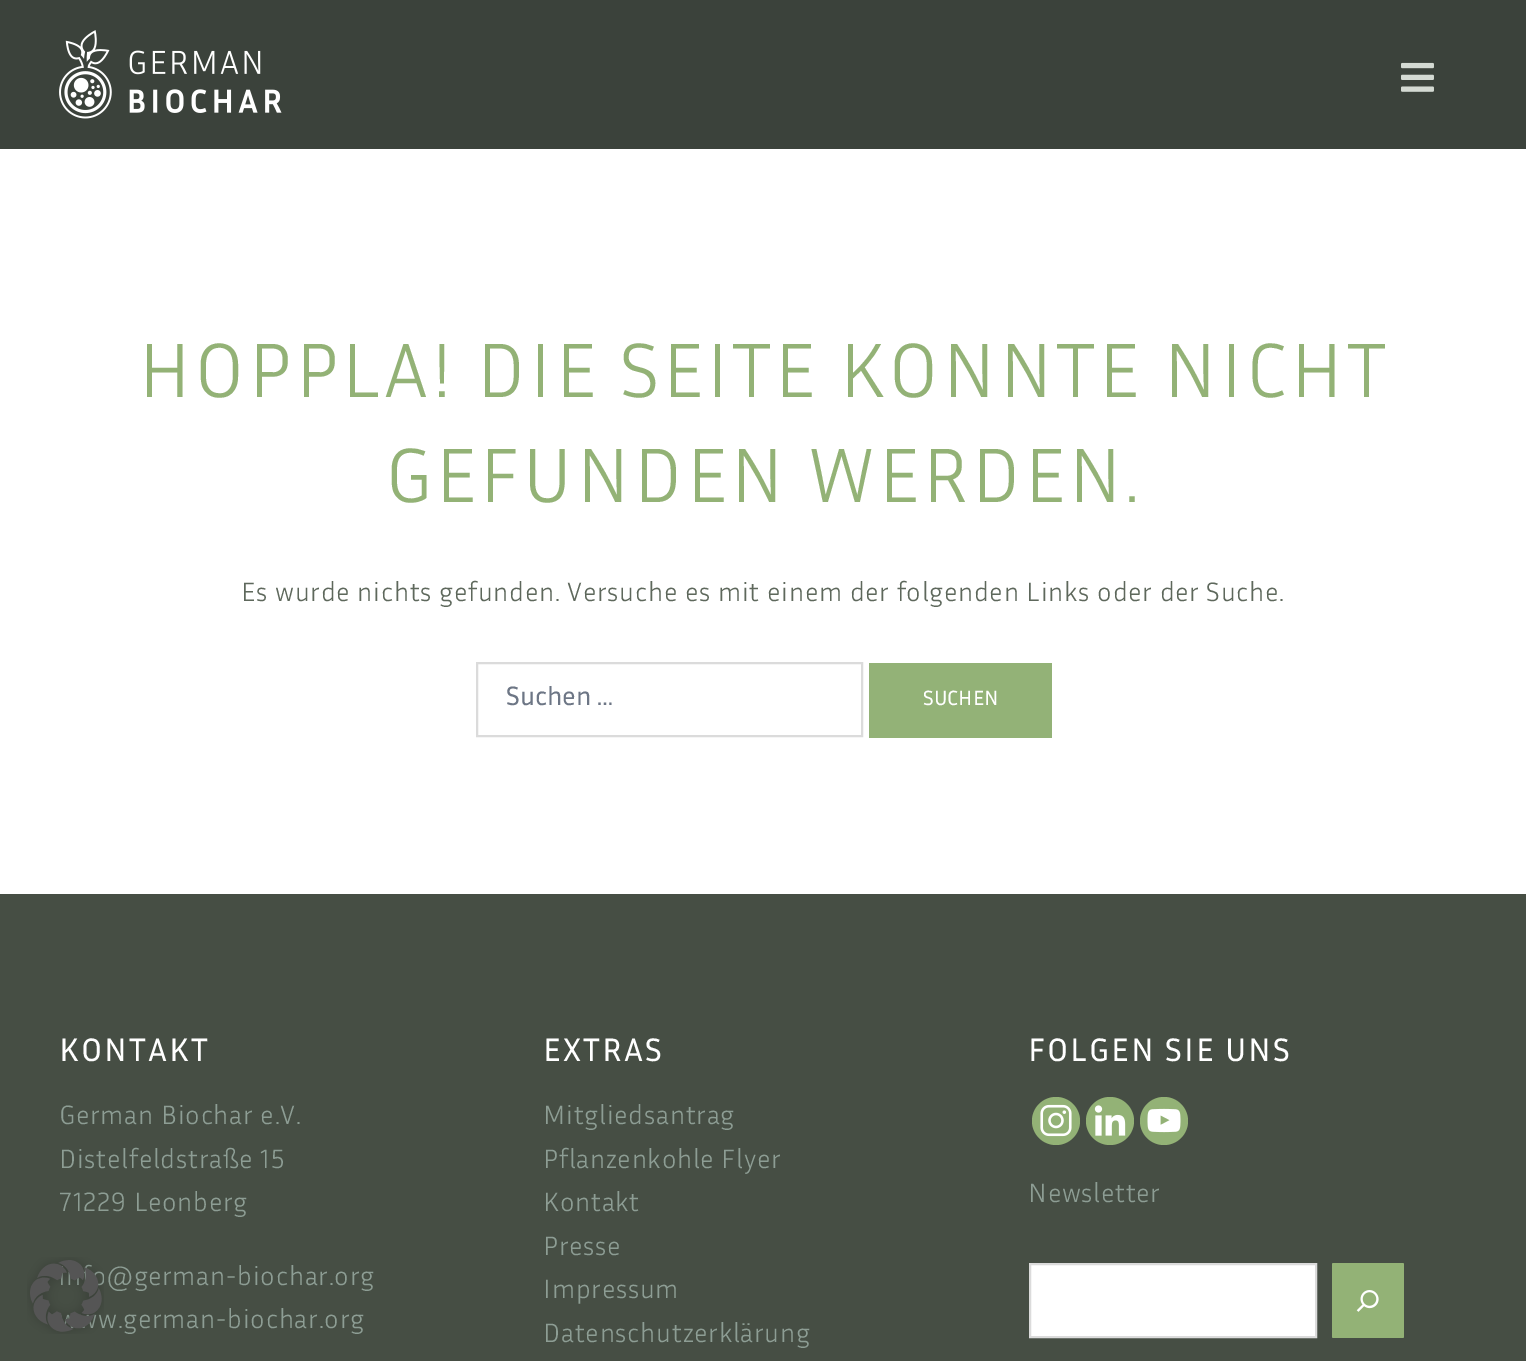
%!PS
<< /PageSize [1526 1361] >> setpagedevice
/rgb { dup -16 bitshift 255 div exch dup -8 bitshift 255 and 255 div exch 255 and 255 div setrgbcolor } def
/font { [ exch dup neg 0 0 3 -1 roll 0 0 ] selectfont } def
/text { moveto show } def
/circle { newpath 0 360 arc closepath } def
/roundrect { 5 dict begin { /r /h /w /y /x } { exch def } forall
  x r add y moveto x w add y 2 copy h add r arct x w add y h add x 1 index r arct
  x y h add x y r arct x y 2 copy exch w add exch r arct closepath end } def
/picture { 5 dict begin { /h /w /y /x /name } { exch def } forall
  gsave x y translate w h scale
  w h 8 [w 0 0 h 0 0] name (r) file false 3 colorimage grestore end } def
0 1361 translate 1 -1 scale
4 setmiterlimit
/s1 { /InriaSans-Regular 27 font 16#6D7685 rgb } def
/s2 { /InriaSans-Regular 21 font 16#FFFFFF rgb } def
16#FFFFFF rgb
0 0 1526 1361 rectfill
16#3B423B rgb
0 0 1526 149 rectfill
(pic1.raw) 59 30 223 89 picture
(pic2.raw) 1401 62 33 30 picture
/InriaSans-Light 78 font
16#93B276 rgb
138 397 moveto 3 0 (HOPPLA! DIE SEITE KONNTE NICHT) ashow
385 502 moveto 3 0 (GEFUNDEN WERDEN.) ashow
/InriaSans-Light 27 font
16#5E685C rgb
241 601 moveto 0.75 0 (Es wurde nichts gefunden. Versuche es mit einem der folgenden Links oder der Suche.) ashow
16#DBDBDB rgb
2 setlinewidth
477 663 385 73 rectstroke
gsave
507 686 300 28 rectclip
s1
(Suchen …) 506 705 text
grestore
16#93B277 rgb
869 663 183 75 rectfill
s2
(SUCHEN) 923 705 text
16#464E44 rgb
0 894 1526 467 rectfill
/InriaSans-Regular 33 font
16#FFFFFF rgb
59 1061 moveto 2.1 0 (KONTAKT) ashow
/InriaSans-Light 27 font
16#8D9D94 rgb
59 1124 moveto 0.75 0 (German Biochar e.V.) ashow
59 1168 moveto 0.75 0 (Distelfeldstraße 15) ashow
59 1211 moveto 0.75 0 (71229 Leonberg) ashow
107 1285 moveto 0.75 0 (@german-biochar.org) ashow
98 1328 moveto 0.75 0 (w.german-biochar.org) ashow
/InriaSans-Regular 33 font
16#FFFFFF rgb
543 1061 moveto 2.1 0 (EXTRAS) ashow
/InriaSans-Light 27 font
16#8D9D94 rgb
543 1124 moveto 0.75 0 (Mitgliedsantrag) ashow
543 1168 moveto 0.75 0 (Pflanzenkohle Flyer) ashow
543 1211 moveto 0.75 0 (Kontakt) ashow
543 1255 moveto 0.75 0 (Presse) ashow
543 1298 moveto 0.75 0 (Impressum) ashow
543 1342 moveto 0.75 0 (Datenschutzerklärung) ashow
/InriaSans-Regular 33 font
16#FFFFFF rgb
1028 1061 moveto 2.1 0 (FOLGEN SIE UNS) ashow
16#93B276 rgb
1056 1121 24 circle fill
(pic3.raw) 1040 1104 32 33 picture
1110 1121 24 circle fill
(pic4.raw) 1094 1105 32 31 picture
1164 1121 24 circle fill
(pic5.raw) 1147 1108 34 25 picture
/InriaSans-Light 27 font
16#8D9D94 rgb
1028 1202 moveto 0.75 0 (Newsletter) ashow
16#FFFFFF rgb
1030 1264 moveto 1316 1264 lineto 1316 1337 lineto 1030 1337 lineto closepath gsave fill grestore
16#DBDBDB rgb
stroke
16#93B276 rgb
1332 1263 72 75 1.5 roundrect fill
(pic6.raw) 1356 1290 23 22 picture
(pic7.raw) 27 1257 77 77 picture
showpage
